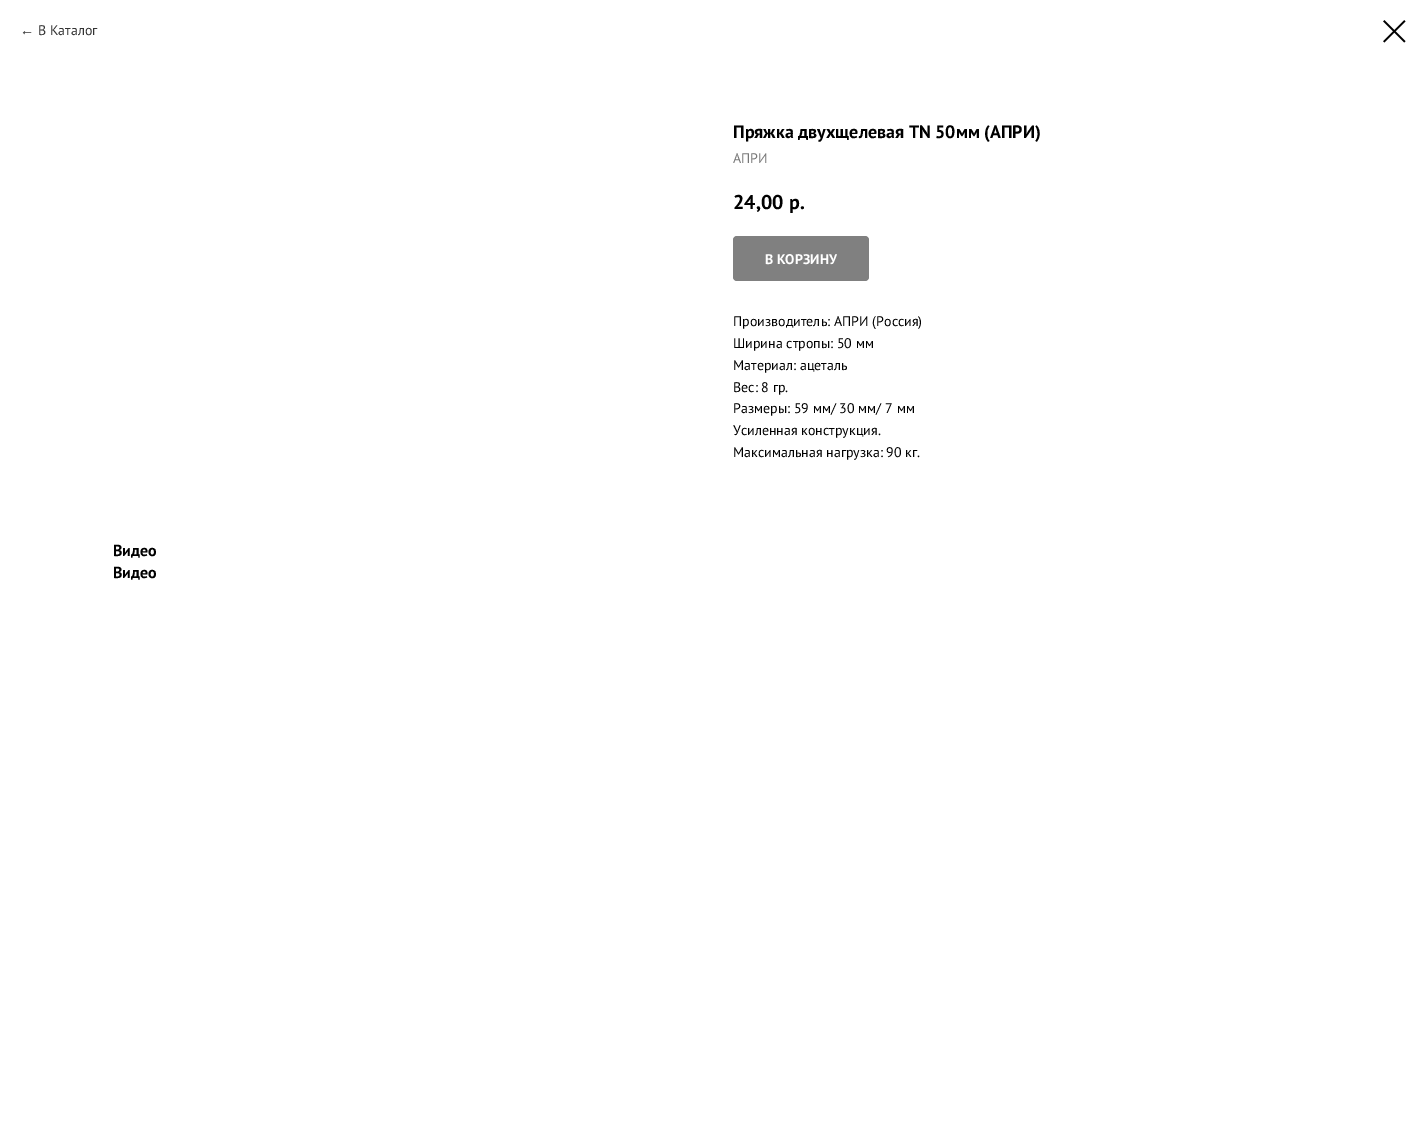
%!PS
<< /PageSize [1426 1130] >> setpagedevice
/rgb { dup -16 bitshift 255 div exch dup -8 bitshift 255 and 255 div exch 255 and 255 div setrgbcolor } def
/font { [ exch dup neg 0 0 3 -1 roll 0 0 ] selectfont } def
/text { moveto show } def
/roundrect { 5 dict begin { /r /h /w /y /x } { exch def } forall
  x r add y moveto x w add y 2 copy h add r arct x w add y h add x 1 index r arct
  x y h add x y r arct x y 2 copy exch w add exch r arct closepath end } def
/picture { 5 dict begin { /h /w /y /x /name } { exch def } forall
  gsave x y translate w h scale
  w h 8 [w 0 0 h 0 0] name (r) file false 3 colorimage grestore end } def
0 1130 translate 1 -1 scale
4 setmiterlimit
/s1 { /LiberationSans-Regular 14 font 16#333333 rgb } def
/s2 { /PTSans-Regular 14 font 16#333333 rgb } def
/s3 { /PTSans-Bold 18 font 16#000000 rgb } def
/s4 { /PTSans-Regular 14 font 16#777777 rgb } def
/s5 { /PTSans-Bold 20 font 16#000000 rgb } def
/s6 { /PTSans-Bold 14 font 16#FFFFFF rgb } def
/s7 { /PTSans-Regular 14 font 16#000000 rgb } def
/s8 { /PTSans-Bold 16 font 16#000000 rgb } def
16#FFFFFF rgb
0 0 1426 1130 rectfill
s1
(←) 20 35 text
s2
(В Каталог) 38 35 text
(pic1.raw) 1383 20 23 23 picture
s3
(Пряжка двухщелевая TN 50мм \(АПРИ\)) 733 138 text
s4
(АПРИ) 733 163 text
s5
(24,00) 733 209 text
(р.) 789 209 text
16#808080 rgb
733 236 136 45 4 roundrect fill
s6
(В КОРЗИНУ) 765 264 text
s7
(Производитель: АПРИ \(Россия\)) 733 326 text
(Ширина стропы: 50 мм) 733 348 text
(Материал: ацеталь) 733 370 text
(Вес: 8 гр.) 733 392 text
(Размеры: 59 мм/ 30 мм/ 7 мм) 733 413 text
(Усиленная конструкция.) 733 435 text
(Максимальная нагрузка: 90 кг.) 733 457 text
s8
(Видео) 113 556 text
(Видео) 113 578 text
showpage
